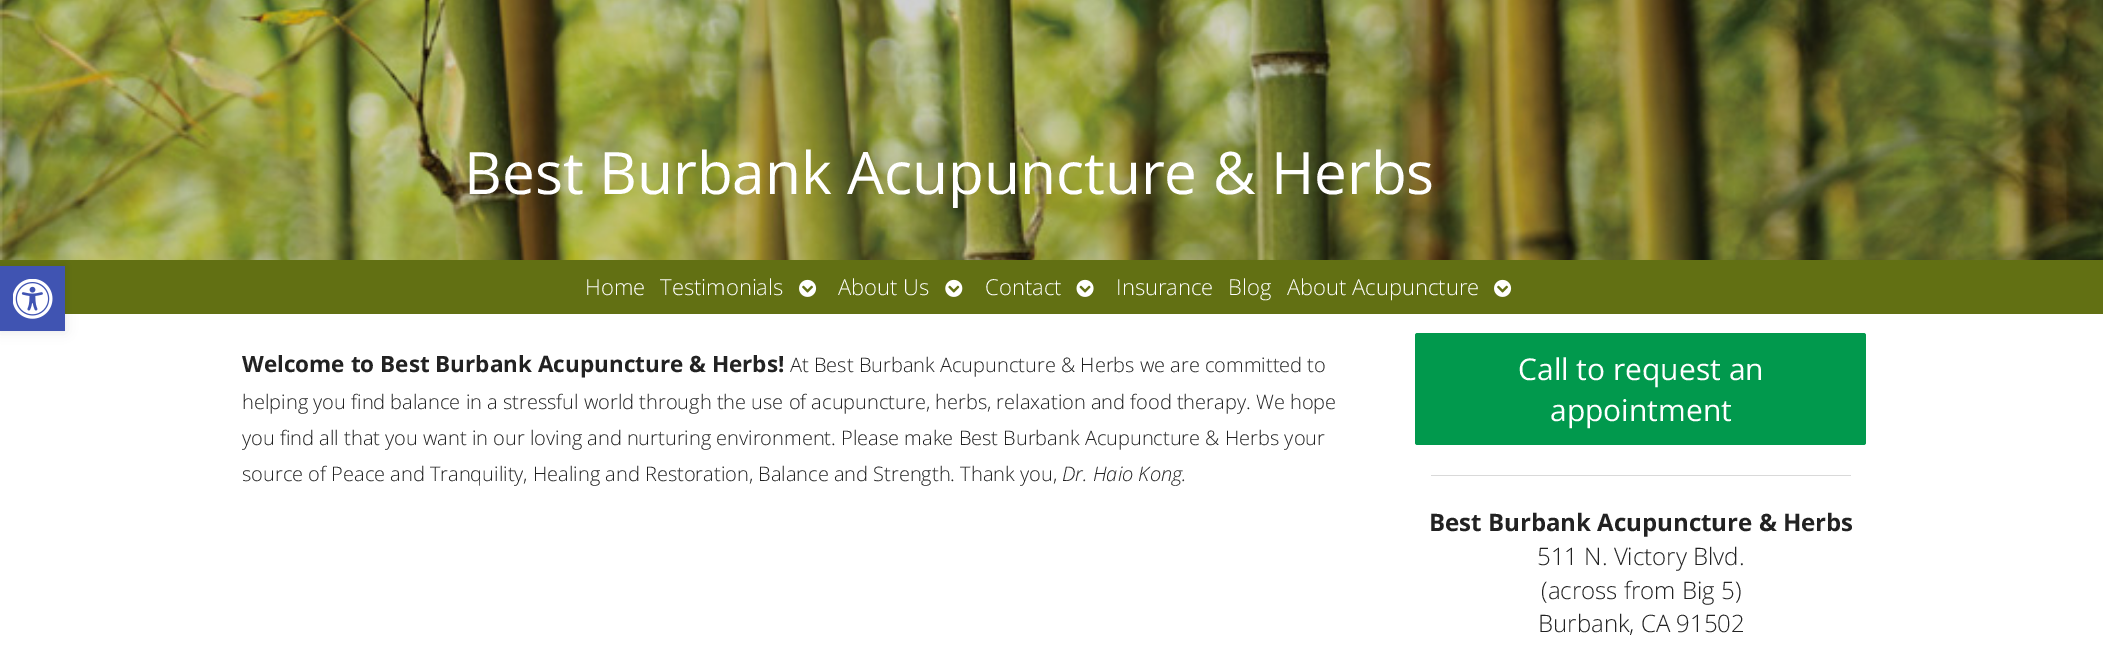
%!PS
<< /PageSize [2103 666] /PageUsesTransparency true >> setpagedevice
/rgb { dup -16 bitshift 255 div exch dup -8 bitshift 255 and 255 div exch 255 and 255 div setrgbcolor } def
/font { [ exch dup neg 0 0 3 -1 roll 0 0 ] selectfont } def
/text { moveto show } def
/alpha { dup .setfillconstantalpha .setstrokeconstantalpha } def
/roundrect { 5 dict begin { /r /h /w /y /x } { exch def } forall
  x r add y moveto x w add y 2 copy h add r arct x w add y h add x 1 index r arct
  x y h add x y r arct x y 2 copy exch w add exch r arct closepath end } def
/shadow { 12 dict begin { /a /b /q /h /w /y /x } { exch def } forall gsave /was 0 def
  9 -2 -9 { dup b mul 4 div /e exch def 1 sub .425 mul 2.718 exch exp 1 add a .99 .min exch div /now exch def
    1 1 now sub 1 was sub div sub alpha /was now def
    w h .min e 2 mul add 0 gt { x e sub y e sub w e 2 mul add h e 2 mul add
      q e add b .6 mul add w h .min 2 div e add .min 0 .max roundrect fill } if } for grestore end } def
/picture { 5 dict begin { /h /w /y /x /name } { exch def } forall
  gsave x y translate w h scale
  w h 8 [w 0 0 h 0 0] name (r) file false 3 colorimage grestore end } def
0 .pushpdf14devicefilter
0 666 translate 1 -1 scale
4 setmiterlimit
/s1 { /OpenSans-Regular 58.6 font 16#FFFFFF rgb } def
/s2 { /OpenSans-Light 22 font 16#FFFFFF rgb } def
/s3 { /OpenSans-Bold 22.5 font 16#222222 rgb } def
/s4 { /OpenSans-Light 20 font 16#222222 rgb } def
/s5 { /OpenSans-LightItalic 20 font 16#222222 rgb } def
/s6 { /OpenSans-Regular 30 font 16#FFFFFF rgb } def
/s7 { /OpenSans-Bold 24 font 16#222222 rgb } def
/s8 { /OpenSans-Light 24 font 16#222222 rgb } def
16#FFFFFF rgb
0 0 2103 666 rectfill
(pic2.raw) 0 0 2103 260 picture
16#627013 rgb
0 260 2103 54 rectfill
16#000000 rgb
0 266 65 65 0 6 0.1 shadow
16#4054B2 rgb
0 266 65 65 rectfill
(pic1.raw) 13 279 40 40 picture
s1
(Best Burbank Acupuncture & Herbs) 464 194 text
s2
(Home) 585 295 text
(Testimonials) 660 295 text
(pic3.raw) 799 279 18 18 picture
(About Us) 838 295 text
(pic4.raw) 945 279 18 18 picture
(Contact) 985 295 text
(pic5.raw) 1076 279 18 18 picture
(Insurance) 1116 295 text
(Blog) 1228 295 text
(About Acupuncture) 1287 295 text
(pic3.raw) 1494 279 18 18 picture
s3
(Welcome to Best Burbank Acupuncture & Herbs!) 242 372 text
s4
(At Best Burbank Acupuncture & Herbs we are committed to) 790 372 text
(helping you find balance in a stressful world through the use of acupuncture, herbs, relaxation and food therapy. We hope) 242 409 text
(you find all that you want in our loving and nurturing environment. Please make Best Burbank Acupuncture & Herbs your) 242 445 text
(source of Peace and Tranquility, Healing and Restoration, Balance and Strength. Thank you,) 242 481 text
s5
(Dr. Haio Kong.) 1062 481 text
16#01994D rgb
1415 333 451 112 2.5 roundrect fill
s6
(Call to request an) 1518 380 text
(appointment) 1550 421 text
16#D9D9D9 rgb
1431 475 420 1 rectfill
s7
(Best Burbank Acupuncture & Herbs) 1429 531 text
s8
(511 N. Victory Blvd.) 1537 565 text
(\(across from Big 5\)) 1541 599 text
(Burbank, CA 91502) 1538 632 text
.poppdf14devicefilter showpage
